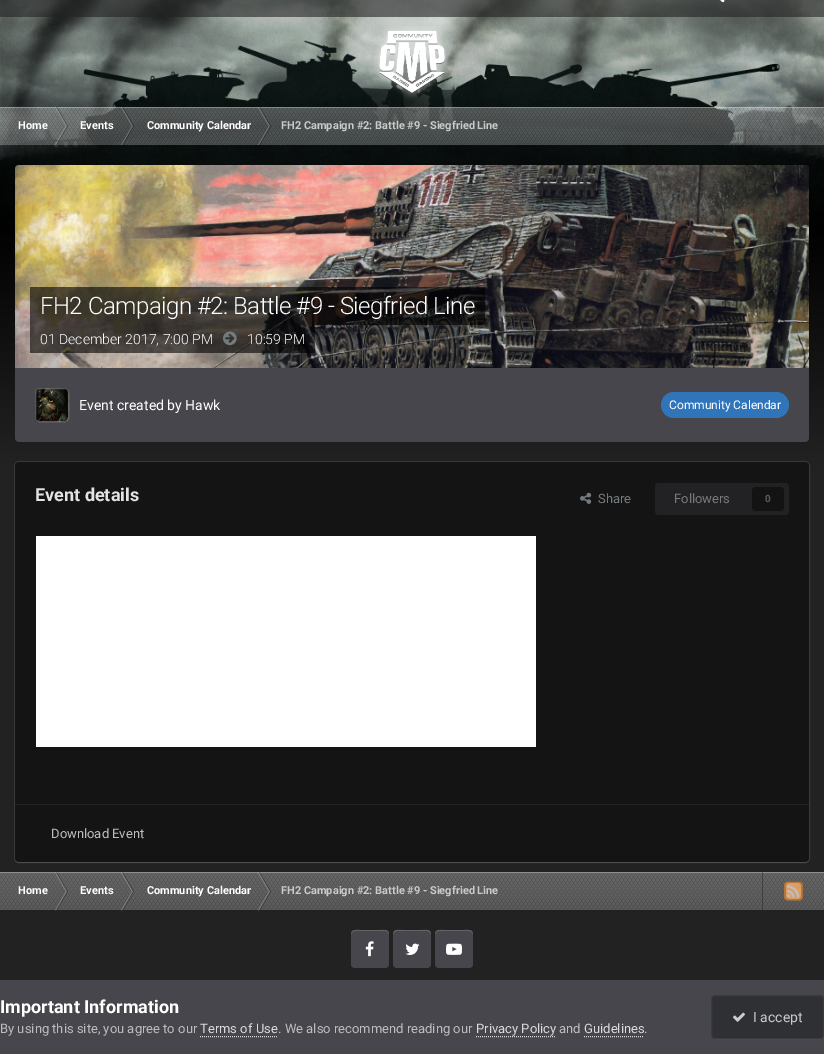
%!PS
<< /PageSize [824 1054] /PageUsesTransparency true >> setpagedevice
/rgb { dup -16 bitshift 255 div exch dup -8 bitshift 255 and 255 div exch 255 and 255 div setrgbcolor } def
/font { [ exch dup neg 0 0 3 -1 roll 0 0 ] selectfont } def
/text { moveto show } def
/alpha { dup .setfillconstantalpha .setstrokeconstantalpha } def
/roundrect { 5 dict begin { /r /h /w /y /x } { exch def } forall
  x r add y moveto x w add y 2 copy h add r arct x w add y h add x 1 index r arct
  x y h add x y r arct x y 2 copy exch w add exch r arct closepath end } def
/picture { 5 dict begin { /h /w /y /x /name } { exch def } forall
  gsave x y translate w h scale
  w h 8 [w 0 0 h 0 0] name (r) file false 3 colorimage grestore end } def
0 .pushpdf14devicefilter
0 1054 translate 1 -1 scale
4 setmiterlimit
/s1 { /Roboto-Bold 11 font 16#FFFFFF rgb } def
/s2 { /Roboto-Bold 11 font 16#C9CBCA rgb } def
/s3 { /Roboto-Light 14 font 16#FFFFFF rgb } def
/s4 { /Roboto-Regular 14 font 16#FFFFFF rgb } def
/s5 { /Roboto-Regular 12 font 16#FFFFFF rgb } def
/s6 { /Roboto-Bold 18 font 16#E3E3E3 rgb } def
/s7 { /Roboto-Regular 13 font 16#747B7F rgb } def
/s8 { /Roboto-Regular 13 font 16#797979 rgb } def
/s9 { /Roboto-Bold 10 font 16#56595B rgb } def
/s10 { /Roboto-Regular 13 font 16#BDBDBD rgb } def
/s11 { /Roboto-Bold 18 font 16#FFFFFF rgb } def
/s12 { /Roboto-Regular 13 font 16#DADADA rgb } def
/s13 { /Roboto-Regular 14 font 16#C9CBCA rgb } def
16#222222 rgb
0 0 824 1054 rectfill
(pic1.raw) 0 0 824 482 picture
0.6 alpha
0 0 824 17 rectfill
1 alpha
(pic2.raw) 720 0 5 3 picture
(pic3.raw) 374 26 77 72 picture
(pic4.raw) 0 107 824 38 picture
0.3 alpha
16#FFFFFF rgb
0 107 824 1 rectfill
1 alpha
s1
(Home) 18 129 text
0.25 alpha
55 107 moveto 56 107 lineto 67 126 lineto 66 126 lineto closepath fill
0.3 alpha
16#000000 rgb
56 107 moveto 57 107 lineto 68 126 lineto 67 126 lineto closepath fill
0.25 alpha
16#FFFFFF rgb
55 145 moveto 56 145 lineto 67 126 lineto 66 126 lineto closepath fill
0.3 alpha
16#000000 rgb
56 145 moveto 57 145 lineto 68 126 lineto 67 126 lineto closepath fill
1 alpha
s1
(Events) 80 129 text
0.25 alpha
121 107 moveto 122 107 lineto 133 126 lineto 132 126 lineto closepath fill
0.3 alpha
16#000000 rgb
122 107 moveto 123 107 lineto 134 126 lineto 133 126 lineto closepath fill
0.25 alpha
16#FFFFFF rgb
121 145 moveto 122 145 lineto 133 126 lineto 132 126 lineto closepath fill
0.3 alpha
16#000000 rgb
122 145 moveto 123 145 lineto 134 126 lineto 133 126 lineto closepath fill
1 alpha
s1
(Community Calendar) 147 129 text
0.25 alpha
258 107 moveto 259 107 lineto 270 126 lineto 269 126 lineto closepath fill
0.3 alpha
16#000000 rgb
259 107 moveto 260 107 lineto 271 126 lineto 270 126 lineto closepath fill
0.25 alpha
16#FFFFFF rgb
258 145 moveto 259 145 lineto 270 126 lineto 269 126 lineto closepath fill
0.3 alpha
16#000000 rgb
259 145 moveto 260 145 lineto 271 126 lineto 270 126 lineto closepath fill
1 alpha
s2
(FH2 Campaign #2: Battle #9 - Siegfried Line) 281 129 text
(pic5.raw) 15 165 794 203 picture
0.6 alpha
16#000000 rgb
30 287 455 38 rectfill
/Roboto-Light 24 font
1 alpha
16#FFFFFF rgb
40 314 moveto -0.5 0 (FH2 Campaign #2: Battle #9 - Siegfried Line) ashow
0.6 alpha
16#000000 rgb
30 325 285 28 rectfill
1 alpha
s3
(01 December 2017, 7:00 PM) 40 344 text
(pic6.raw) 223 331 14 15 picture
(10:59 PM) 247 344 text
16#46464C rgb
15 368 moveto 809 368 lineto 809 438 lineto 809 440 807 442 805 442 curveto 19 442 lineto 17 442 15 440 15 438 curveto closepath fill
(pic7.raw) 35 388 34 34 picture
0.3 alpha
16#FFFFFF rgb
35.5 388.5 33 33 3.5 roundrect stroke
1 alpha
s4
(Event created by Hawk) 79 410 text
16#3075BA rgb
661 392 128 26 13 roundrect fill
s5
(Community Calendar) 669 409 text
16#383838 rgb
15 858 moveto 15 861 16 863 19 863 curveto 805 863 lineto 808 863 809 861 809 858 curveto 809 860 807 862 805 862 curveto 19 862 lineto 17 862 15 860 15 858 curveto closepath fill
0.1 alpha
16#FFFFFF rgb
14.5 461.5 795 401 4.5 roundrect stroke
0.85 alpha
16#121213 rgb
15 462 794 400 4 roundrect fill
1 alpha
s6
(Event details) 35 501 text
(pic8.raw) 580 492 12 12 picture
s7
(Share) 598 503 text
16#222224 rgb
655 483 134 32 4 roundrect fill
s8
(Followers) 674 503 text
16#131314 rgb
752 487 32 24 4 roundrect fill
s9
(0) 765 502 text
16#FFFFFF rgb
36 536 500 211 rectfill
16#222223 rgb
15 804 794 1 rectfill
s10
(Download Event) 51 838 text
(pic9.raw) 0 872 824 38 picture
0.3 alpha
16#FFFFFF rgb
0 872 824 1 rectfill
1 alpha
s1
(Home) 18 894 text
0.25 alpha
55 872.5 moveto 56 872.5 lineto 67 891.5 lineto 66 891.5 lineto closepath fill
0.3 alpha
16#000000 rgb
56 872.5 moveto 57 872.5 lineto 68 891.5 lineto 67 891.5 lineto closepath fill
0.25 alpha
16#FFFFFF rgb
55 910.5 moveto 56 910.5 lineto 67 891.5 lineto 66 891.5 lineto closepath fill
0.3 alpha
16#000000 rgb
56 910.5 moveto 57 910.5 lineto 68 891.5 lineto 67 891.5 lineto closepath fill
1 alpha
s1
(Events) 80 894 text
0.25 alpha
121 872.5 moveto 122 872.5 lineto 133 891.5 lineto 132 891.5 lineto closepath fill
0.3 alpha
16#000000 rgb
122 872.5 moveto 123 872.5 lineto 134 891.5 lineto 133 891.5 lineto closepath fill
0.25 alpha
16#FFFFFF rgb
121 910.5 moveto 122 910.5 lineto 133 891.5 lineto 132 891.5 lineto closepath fill
0.3 alpha
16#000000 rgb
122 910.5 moveto 123 910.5 lineto 134 891.5 lineto 133 891.5 lineto closepath fill
1 alpha
s1
(Community Calendar) 147 894 text
0.25 alpha
258 872.5 moveto 259 872.5 lineto 270 891.5 lineto 269 891.5 lineto closepath fill
0.3 alpha
16#000000 rgb
259 872.5 moveto 260 872.5 lineto 271 891.5 lineto 270 891.5 lineto closepath fill
0.25 alpha
16#FFFFFF rgb
258 910.5 moveto 259 910.5 lineto 270 891.5 lineto 269 891.5 lineto closepath fill
0.3 alpha
16#000000 rgb
259 910.5 moveto 260 910.5 lineto 271 891.5 lineto 270 891.5 lineto closepath fill
1 alpha
s2
(FH2 Campaign #2: Battle #9 - Siegfried Line) 281 894 text
0.3 alpha
16#000000 rgb
762 872 1 38 rectfill
0.6 alpha
16#FFFFFF rgb
786 883 15 16 3 roundrect fill
1 alpha
(pic10.raw) 784 881 19 20 picture
16#46464C rgb
351 930 38 38 4 roundrect fill
0.15 alpha
16#FFFFFF rgb
355 931 moveto 353 931 351 933 351 935 curveto 351 929 355.5 930 360 930 curveto 380 930 lineto 384.5 930 389 929 389 935 curveto 389 933 387 931 385 931 curveto closepath fill
1 alpha
(pic11.raw) 365 941 9 16 picture
16#46464C rgb
393 930 38 38 4 roundrect fill
0.15 alpha
16#FFFFFF rgb
397 931 moveto 395 931 393 933 393 935 curveto 393 929 397.5 930 402 930 curveto 422 930 lineto 426.5 930 431 929 431 935 curveto 431 933 429 931 427 931 curveto closepath fill
1 alpha
(pic12.raw) 405 943 15 12 picture
16#46464C rgb
435 930 38 38 4 roundrect fill
0.15 alpha
16#FFFFFF rgb
439 931 moveto 437 931 435 933 435 935 curveto 435 929 439.5 930 444 930 curveto 464 930 lineto 468.5 930 473 929 473 935 curveto 473 933 471 931 469 931 curveto closepath fill
1 alpha
(pic13.raw) 446 943 16 12 picture
16#46464C rgb
0 980 824 74 rectfill
s11
(Important Information) 0 1013 text
s10
(By using this site, you agree to our) 0 1033 text
s12
(Terms of Use) 200 1033 text
[1 1] 0 setdash
200 1036.5 moveto 278 1036.5 lineto stroke
s10
(. We also recommend reading our) 278 1033 text
s12
(Privacy Policy) 476 1033 text
476 1036.5 moveto 556 1036.5 lineto stroke
s10
(and) 559 1033 text
s12
(Guidelines) 584 1033 text
584 1036.5 moveto 644 1036.5 lineto stroke
s10
(.) 644 1033 text
16#2F3033 rgb
711 995 113 44 4 roundrect fill
0.07 alpha
16#CCCCCC rgb
[] 0 setdash
711.5 995.5 112 43 3.5 roundrect stroke
1 alpha
(pic14.raw) 733 1012 12 10 picture
s13
(I accept) 753 1022 text
.poppdf14devicefilter showpage
